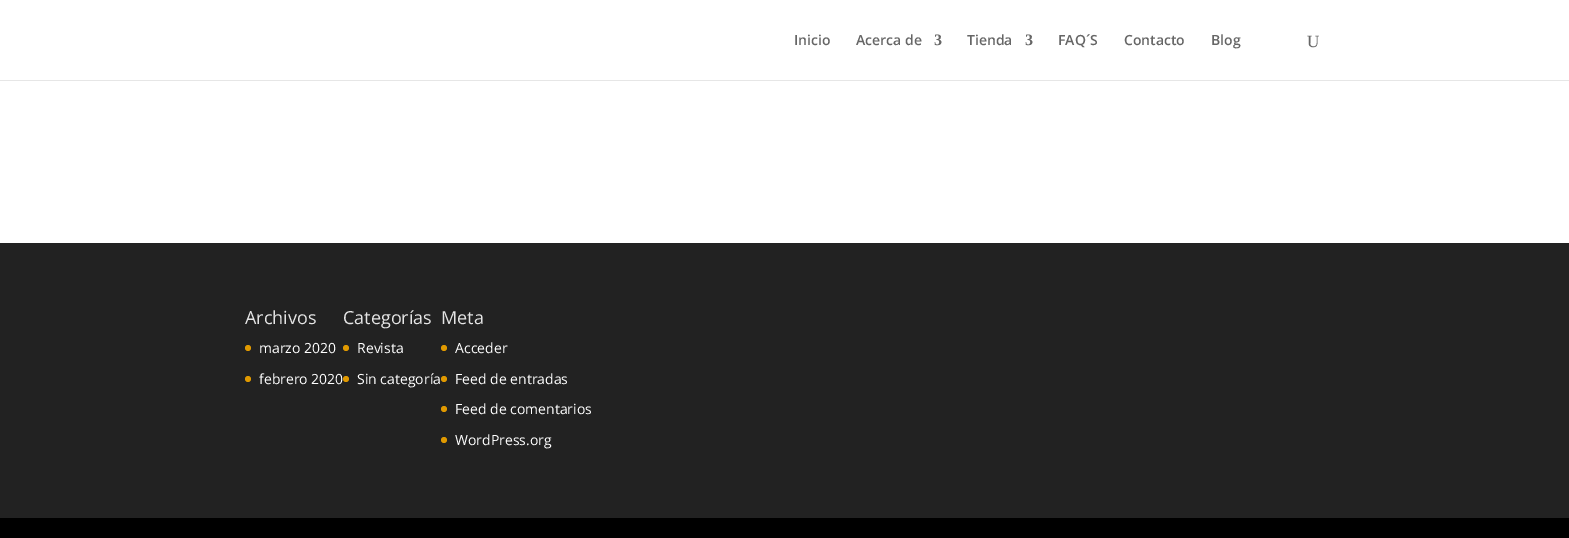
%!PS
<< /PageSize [1569 538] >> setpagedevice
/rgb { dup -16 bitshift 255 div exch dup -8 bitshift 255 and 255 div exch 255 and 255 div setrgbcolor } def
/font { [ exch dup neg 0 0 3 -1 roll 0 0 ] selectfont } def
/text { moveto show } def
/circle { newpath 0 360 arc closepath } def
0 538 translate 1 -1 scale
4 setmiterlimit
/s1 { /OpenSans-SemiBold 14 font 16#666666 rgb } def
/s2 { /LiberationSerif-Bold 16 font 16#666666 rgb } def
/s3 { /LiberationSerif-Regular 17 font 16#666666 rgb } def
/s4 { /OpenSans-Regular 18 font 16#E5E5E5 rgb } def
/s5 { /OpenSans-Regular 14 font 16#FFFFFF rgb } def
16#FFFFFF rgb
0 0 1569 538 rectfill
16#E6E6E6 rgb
0 80 1569 1 rectfill
s1
(Inicio) 794 45 text
(Acerca de) 856 45 text
s2
(3) 934 45 text
s1
(Tienda) 967 45 text
s2
(3) 1025 45 text
s1
(FAQ´S) 1058 45 text
(Contacto) 1124 45 text
(Blog) 1211 45 text
s3
(U) 1307 47 text
16#222222 rgb
0 243 1569 275 rectfill
s4
(Archivos) 245 324 text
16#E09900 rgb
248 348 3 circle fill
s5
(marzo 2020) 259 353 text
16#E09900 rgb
248 379 3 circle fill
s5
(febrero 2020) 259 384 text
s4
(Categorías) 343 324 text
16#E09900 rgb
346 348 3 circle fill
s5
(Revista) 357 353 text
16#E09900 rgb
346 379 3 circle fill
s5
(Sin categoría) 357 384 text
s4
(Meta) 441 324 text
16#E09900 rgb
444 348 3 circle fill
s5
(Acceder) 455 353 text
16#E09900 rgb
444 379 3 circle fill
s5
(Feed de entradas) 455 384 text
16#E09900 rgb
444 409 3 circle fill
s5
(Feed de comentarios) 455 414 text
16#E09900 rgb
444 440 3 circle fill
s5
(WordPress.org) 455 445 text
16#000000 rgb
0 518 1569 20 rectfill
showpage
